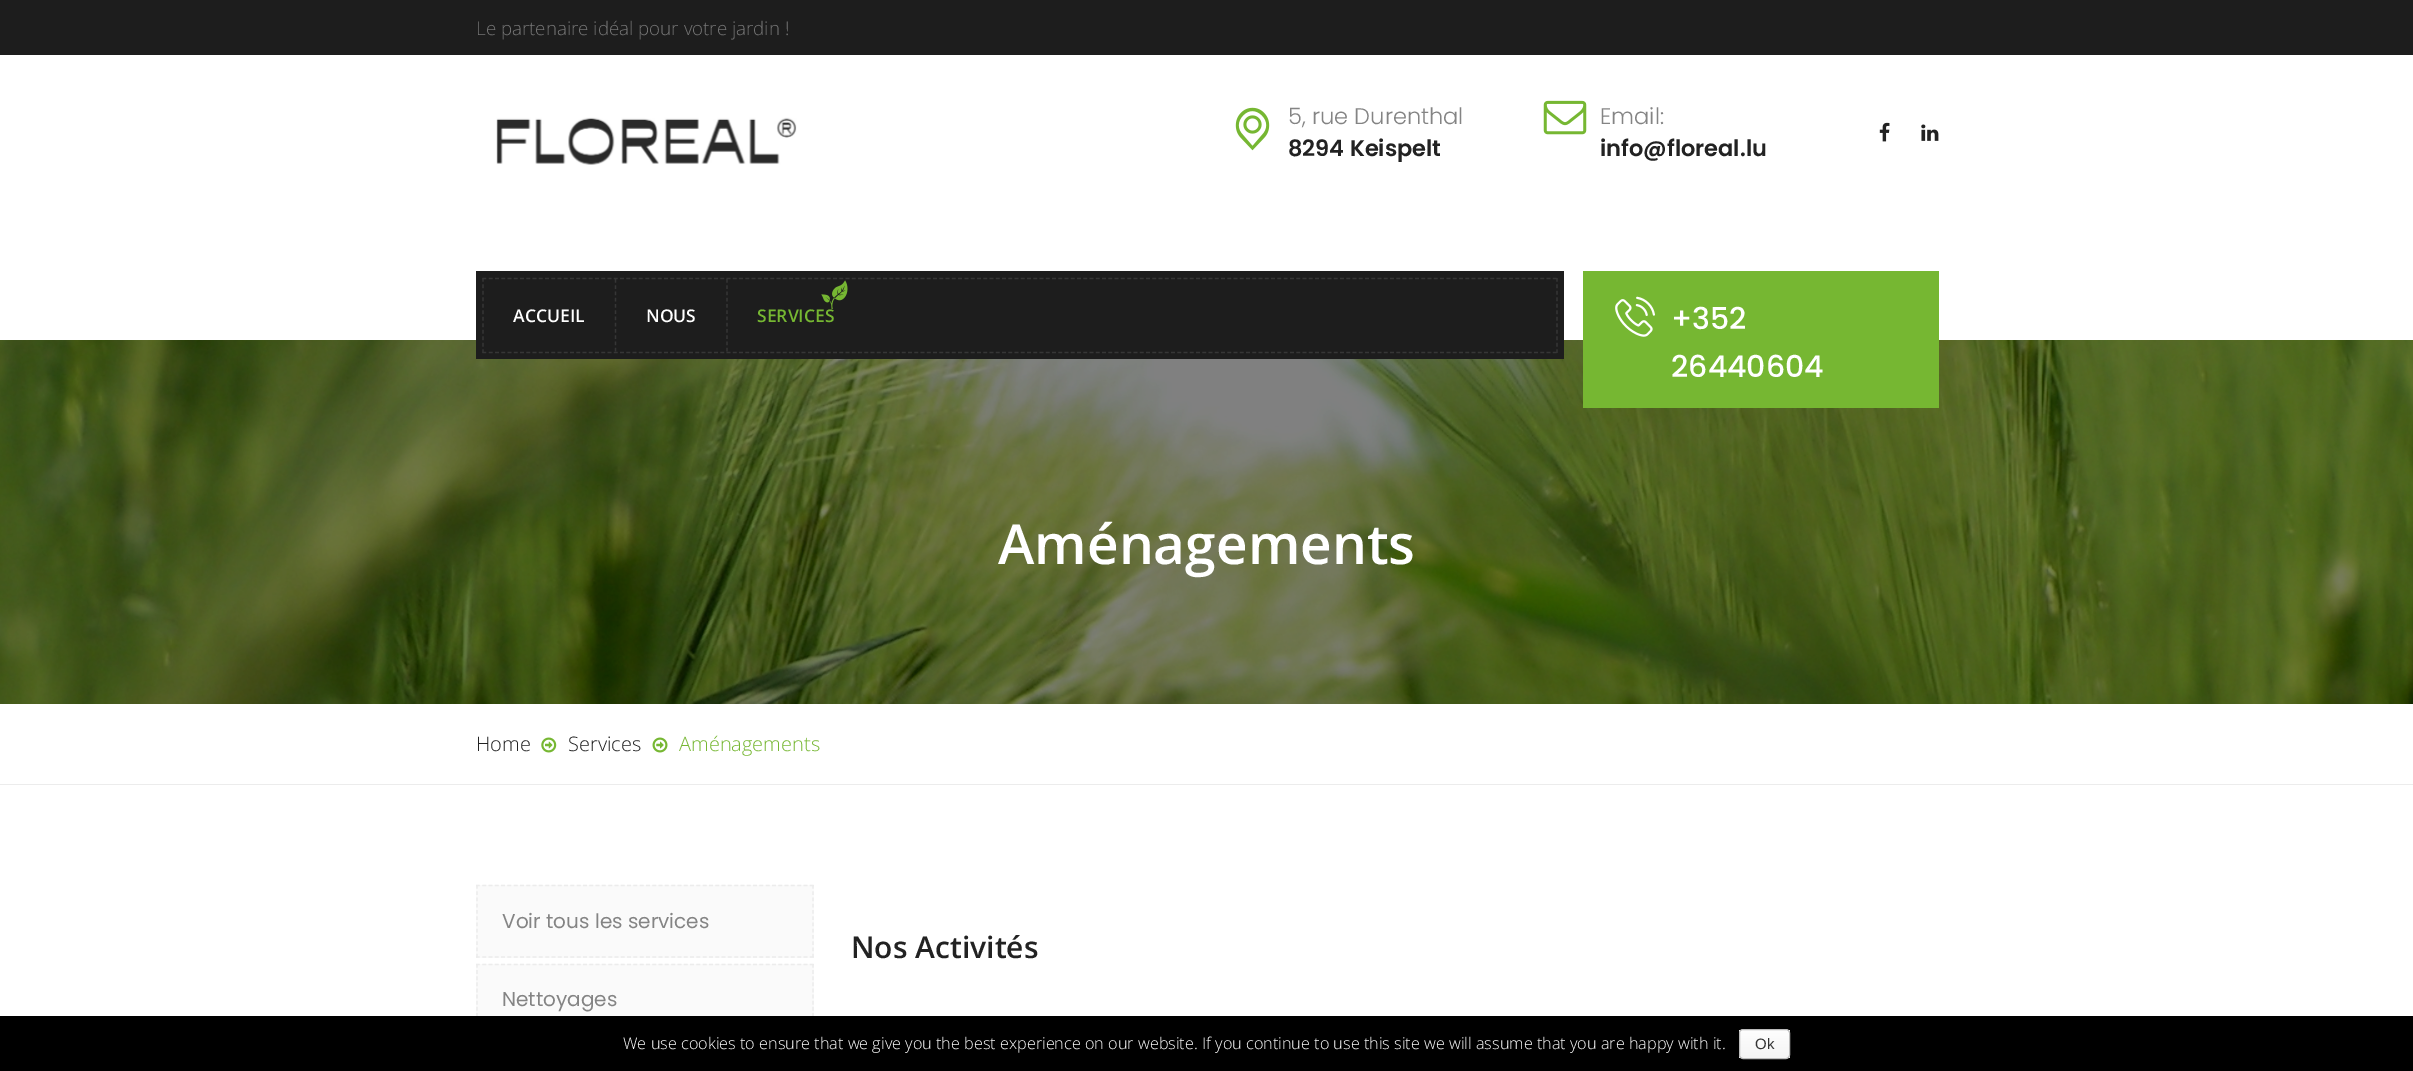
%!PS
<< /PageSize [2413 1071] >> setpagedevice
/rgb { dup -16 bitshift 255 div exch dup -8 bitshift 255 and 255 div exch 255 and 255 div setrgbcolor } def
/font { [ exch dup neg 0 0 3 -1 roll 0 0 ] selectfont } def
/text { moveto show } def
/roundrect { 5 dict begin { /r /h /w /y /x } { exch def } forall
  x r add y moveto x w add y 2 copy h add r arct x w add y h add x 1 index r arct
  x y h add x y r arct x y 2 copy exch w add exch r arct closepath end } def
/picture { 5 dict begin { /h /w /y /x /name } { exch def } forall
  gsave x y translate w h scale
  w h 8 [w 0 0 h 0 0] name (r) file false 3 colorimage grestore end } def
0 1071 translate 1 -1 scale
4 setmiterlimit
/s1 { /OpenSans-Light 18.75 font 16#757575 rgb } def
/s2 { /Poppins-Light 22.5 font 16#848484 rgb } def
/s3 { /Poppins-SemiBold 22.5 font 16#222222 rgb } def
/s4 { /OpenSans-SemiBold 17.5 font 16#FFFFFF rgb } def
/s5 { /OpenSans-SemiBold 17.5 font 16#76B732 rgb } def
/s6 { /Poppins-Medium 30 font 16#FFFFFF rgb } def
/s7 { /OpenSans-SemiBold 55 font 16#FFFFFF rgb } def
/s8 { /OpenSans-Light 20 font 16#222222 rgb } def
/s9 { /OpenSans-Light 20 font 16#76B732 rgb } def
/s10 { /Poppins-Regular 20 font 16#848484 rgb } def
/s11 { /OpenSans-SemiBold 30 font 16#222222 rgb } def
/s12 { /OpenSans-Light 16.25 font 16#FFFFFF rgb } def
/s13 { /LiberationSans-Regular 15 font 16#333333 rgb } def
16#FFFFFF rgb
0 0 2413 1071 rectfill
16#1D1D1D rgb
0 0 2413 55 rectfill
s1
(Le partenaire idéal pour votre jardin !) 476 35 text
(pic1.raw) 496 117 301 48 picture
(pic2.raw) 1235 107 35 44 picture
s2
(5, rue Durenthal) 1288 124 text
s3
(8294 Keispelt) 1288 156 text
(pic3.raw) 1543 100 44 35 picture
s2
(Email:) 1600 124 text
s3
(info@floreal.lu) 1600 156 text
(pic4.raw) 1879 122 11 20 picture
(pic5.raw) 1921 124 18 17 picture
(pic8.raw) 0 340 2413 364 picture
16#1D1D1D rgb
476 271 1088 88 rectfill
16#363636 rgb
1.2 setlinewidth
[3.75 2.51] 0 setdash
482.5 278.5 moveto 1557.5 278.5 lineto stroke
[3.75 2.73] 0 setdash
1557 278 moveto 1557 353 lineto stroke
[3.75 2.51] 0 setdash
482.5 352.5 moveto 1557.5 352.5 lineto stroke
[3.75 2.73] 0 setdash
483 278 moveto 483 353 lineto stroke
[3.75 2.5] 0 setdash
615.5 279 moveto 615.5 351.5 lineto stroke
s4
(ACCUEIL) 513 322 text
16#363636 rgb
727 279 moveto 727 351.5 lineto stroke
s4
(NOUS) 646 322 text
(pic6.raw) 821 280 27 29 picture
s5
(SERVICES) 757 322 text
1583 271 356 137 rectfill
(pic7.raw) 1615 296 40 41 picture
s6
(+352) 1671 329 text
(26440604) 1671 377 text
s7
(Aménagements) 998 564 text
16#ECECEC rgb
0 784 2413 1 rectfill
s8
(Home) 476 751 text
(pic9.raw) 541 737 16 16 picture
(Services) 568 751 text
(pic10.raw) 652 737 16 16 picture
s9
(Aménagements) 679 751 text
16#FAFAFA rgb
476 885 338 73 rectfill
16#ECECEC rgb
[3.75 2.55] 0 setdash
476 885.5 moveto 814 885.5 lineto stroke
[3.75 2.5] 0 setdash
813 885 moveto 813 957.5 lineto stroke
[3.75 2.55] 0 setdash
476 957 moveto 814 957 lineto stroke
[3.75 2.5] 0 setdash
477 885 moveto 477 957.5 lineto stroke
s10
(Voir tous les services) 502 928 text
16#FAFAFA rgb
476 964 338 52 rectfill
16#ECECEC rgb
[3.75 2.55] 0 setdash
476 964.5 moveto 814 964.5 lineto stroke
[3.75 2.39] 0 setdash
813 964 moveto 813 1035 lineto stroke
477 964 moveto 477 1035 lineto stroke
s10
(Nettoyages) 502 1006 text
s11
(Nos Activités) 851 958 text
16#000000 rgb
0 1016 2413 55 rectfill
s12
(We use cookies to ensure that we give you the best experience on our website. If you continue to use this site we will assume that you are happy with it.) 623 1049 text
gsave
1739 1029 51 30 4 roundrect clip newpath
gsave 1739 1030 moveto 1790 1030 lineto 1790 1058 lineto 1739 1058 lineto closepath clip newpath
<< /ShadingType 2 /ColorSpace /DeviceRGB /Coords [1764 1030 1764 1058] /Extend [true true] /Function << /FunctionType 2 /Domain [0 1] /C0 [0.996 0.996 0.996] /C1 [0.957 0.957 0.957] /N 1 >> >> shfill grestore
grestore
16#BBBBBB rgb
1 setlinewidth
[] 0 setdash
1739.5 1029.5 50 29 3.5 roundrect stroke
s13
(Ok) 1755 1049 text
showpage
